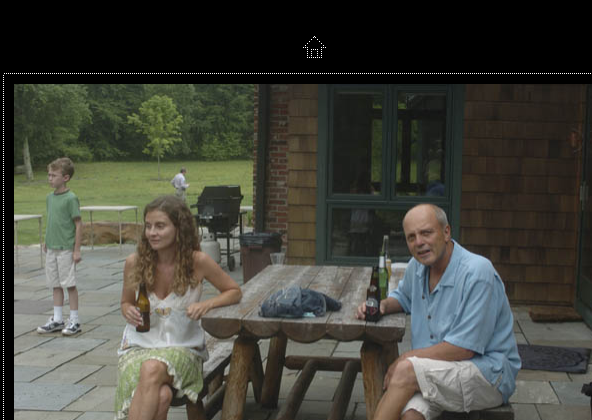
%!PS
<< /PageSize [592 420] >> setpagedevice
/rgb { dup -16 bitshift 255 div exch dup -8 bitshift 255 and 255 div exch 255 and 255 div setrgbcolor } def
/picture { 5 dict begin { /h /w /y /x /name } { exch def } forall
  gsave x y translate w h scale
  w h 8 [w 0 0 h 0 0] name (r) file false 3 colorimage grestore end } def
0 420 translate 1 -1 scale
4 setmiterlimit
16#000000 rgb
0 0 592 420 rectfill
(pic1.raw) 303 36 23 22 picture
(pic2.raw) 4 73 587 1 picture
(pic3.raw) 3 75 1 345 picture
(pic4.raw) 14 84 578 336 picture
showpage
